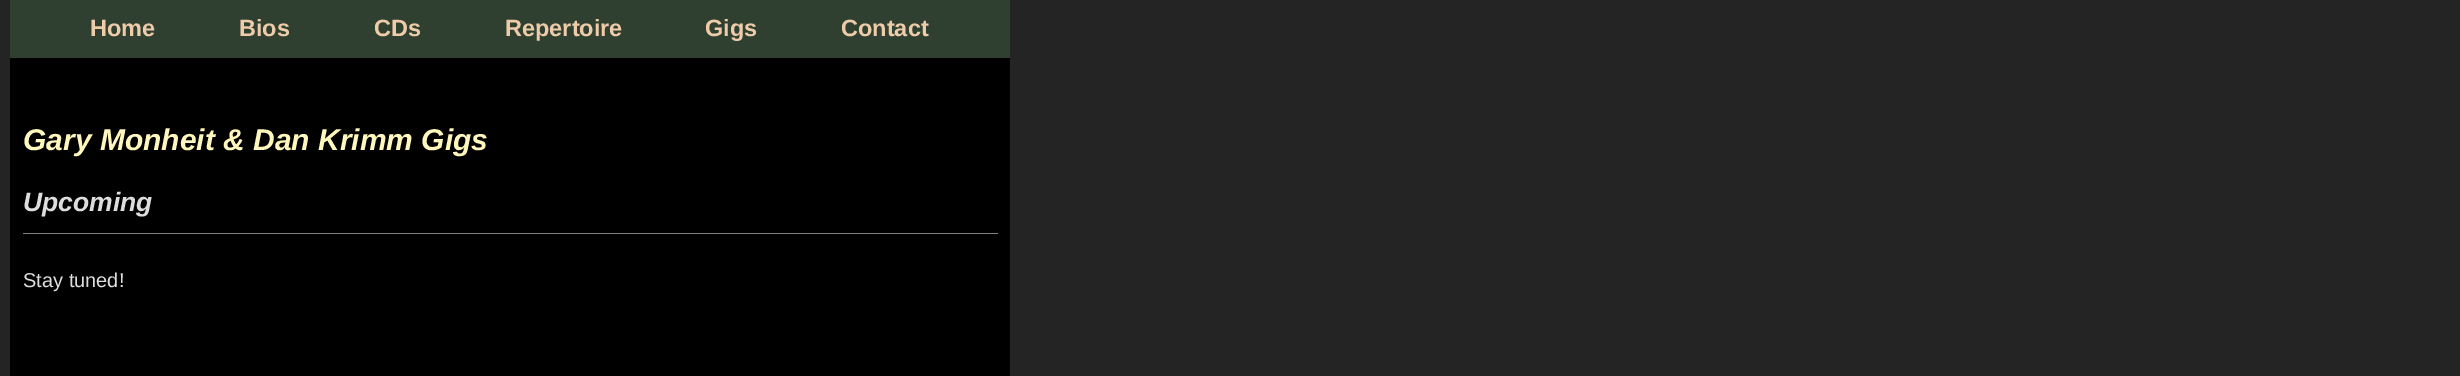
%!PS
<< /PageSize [2460 376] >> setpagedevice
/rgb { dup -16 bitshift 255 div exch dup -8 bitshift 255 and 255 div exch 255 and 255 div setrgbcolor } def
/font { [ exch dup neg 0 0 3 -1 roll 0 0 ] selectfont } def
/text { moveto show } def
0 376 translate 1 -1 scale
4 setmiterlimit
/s1 { /LiberationSans-Bold 23.5 font 16#EECCAA rgb } def
/s2 { /LiberationSans-BoldItalic 30 font 16#FFF7BB rgb } def
/s3 { /LiberationSans-BoldItalic 26.5 font 16#DDDDDD rgb } def
/s4 { /LiberationSans-Regular 20 font 16#DDDDDD rgb } def
16#242424 rgb
0 0 2460 376 rectfill
16#304030 rgb
10 0 1000 58 rectfill
s1
(Home) 90 36 text
(Bios) 239 36 text
(CDs) 374 36 text
(Repertoire) 505 36 text
(Gigs) 705 36 text
(Contact) 841 36 text
16#000000 rgb
10 58 1000 318 rectfill
s2
(Gary Monheit & Dan Krimm Gigs) 23 150 text
s3
(Upcoming) 23 211 text
16#808080 rgb
23 233 975 1 rectfill
s4
(Stay tuned!) 23 287 text
showpage
